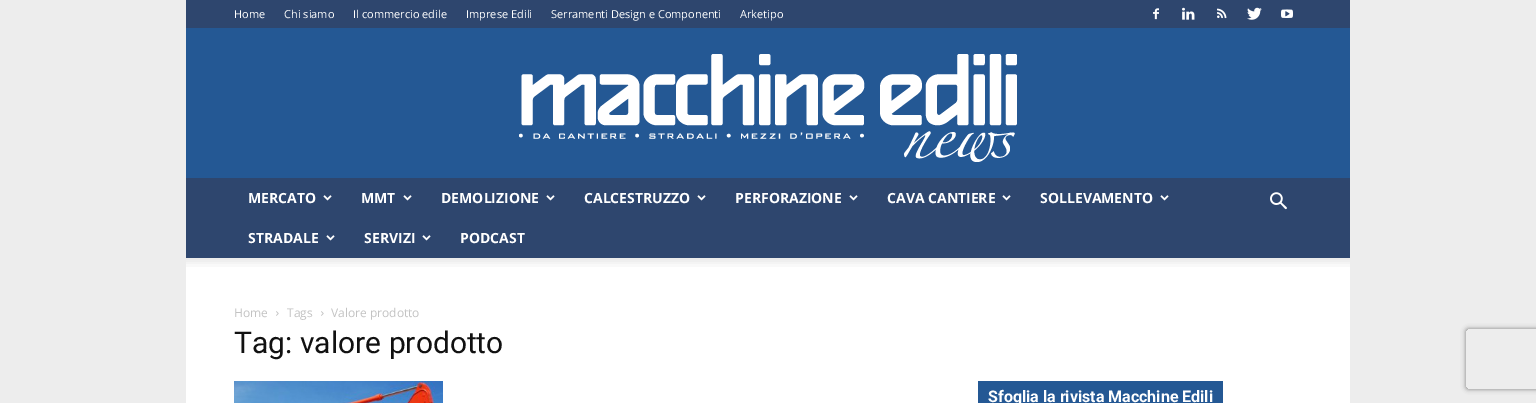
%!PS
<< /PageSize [1536 403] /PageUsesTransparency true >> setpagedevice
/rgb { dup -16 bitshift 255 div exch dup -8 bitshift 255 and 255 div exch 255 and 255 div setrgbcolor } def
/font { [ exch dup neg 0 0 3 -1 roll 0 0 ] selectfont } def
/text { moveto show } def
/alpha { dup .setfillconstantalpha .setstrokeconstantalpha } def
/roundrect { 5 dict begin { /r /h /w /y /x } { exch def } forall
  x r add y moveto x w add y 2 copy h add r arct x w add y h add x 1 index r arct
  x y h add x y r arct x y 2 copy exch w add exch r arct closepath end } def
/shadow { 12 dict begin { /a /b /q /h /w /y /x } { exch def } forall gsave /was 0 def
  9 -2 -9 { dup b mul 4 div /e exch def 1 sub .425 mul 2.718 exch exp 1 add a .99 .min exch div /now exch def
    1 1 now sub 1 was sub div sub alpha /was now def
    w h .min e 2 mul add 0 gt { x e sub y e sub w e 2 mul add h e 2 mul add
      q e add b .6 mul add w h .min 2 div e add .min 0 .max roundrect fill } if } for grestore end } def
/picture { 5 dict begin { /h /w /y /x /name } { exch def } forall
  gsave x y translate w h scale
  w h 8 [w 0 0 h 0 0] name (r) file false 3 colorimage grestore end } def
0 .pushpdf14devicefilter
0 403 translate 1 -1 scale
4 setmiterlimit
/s1 { /OpenSans-Regular 11 font 16#FFFFFF rgb } def
/s2 { /OpenSans-Bold 14 font 16#FFFFFF rgb } def
/s3 { /OpenSans-Regular 12 font 16#C3C3C3 rgb } def
/s4 { /Roboto-Regular 30 font 16#111111 rgb } def
/s5 { /Roboto-Bold 16 font 16#FFFFFF rgb } def
16#EDEDED rgb
0 0 1536 403 rectfill
16#2E466E rgb
186 0 1164 28 rectfill
s1
(Home) 234 18 text
(Chi siamo) 284 18 text
(Il commercio edile) 353 18 text
(Imprese Edili) 466 18 text
(Serramenti Design e Componenti) 551 18 text
(Arketipo) 740 18 text
(pic1.raw) 1153 8 6 12 picture
(pic2.raw) 1182 7 13 13 picture
(pic3.raw) 1217 8 10 11 picture
(pic4.raw) 1247 7 15 13 picture
(pic5.raw) 1281 9 12 9 picture
16#245894 rgb
186 28 1164 150 rectfill
(pic6.raw) 519 54 498 108 picture
16#2E466E rgb
186 178 1164 80 rectfill
s2
(MERCATO) 248 203 text
(pic7.raw) 323 195 9 6 picture
(MMT) 361 203 text
(pic7.raw) 403 195 9 6 picture
(DEMOLIZIONE) 441 203 text
(pic7.raw) 546 195 9 6 picture
(CALCESTRUZZO) 584 203 text
(pic7.raw) 697 195 9 6 picture
(PERFORAZIONE) 735 203 text
(pic7.raw) 849 195 9 6 picture
(CAVA CANTIERE) 887 203 text
(pic7.raw) 1002 195 9 6 picture
(SOLLEVAMENTO) 1040 203 text
(pic7.raw) 1160 195 9 6 picture
(STRADALE) 248 243 text
(pic7.raw) 326 235 9 6 picture
(SERVIZI) 364 243 text
(pic7.raw) 422 235 9 6 picture
(PODCAST) 460 243 text
(pic8.raw) 1270 192 17 18 picture
186 258 1164 145 rectfill
(pic9.raw) 186 258 1164 9 picture
s3
(Home) 234 317 text
(pic10.raw) 276 311 3 5 picture
(Tags) 287 317 text
(pic10.raw) 321 311 3 5 picture
(Valore prodotto) 331 317 text
s4
(Tag: valore prodotto) 234 353 text
(pic11.raw) 234 381 209 22 picture
16#245894 rgb
978 381 245 22 rectfill
s5
(Sfoglia la rivista Macchine Edili) 988 402 text
gsave
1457 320 moveto 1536 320 lineto 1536 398 lineto 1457 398 lineto closepath 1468 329 moveto 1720 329 lineto 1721 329 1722 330 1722 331 curveto 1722 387 lineto 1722 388 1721 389 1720 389 curveto 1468 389 lineto 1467 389 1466 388 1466 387 curveto 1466 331 lineto 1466 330 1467 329 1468 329 curveto closepath eoclip newpath
16#808080 rgb
1466 329 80 60 2 2.5 1 shadow
grestore
.poppdf14devicefilter showpage
